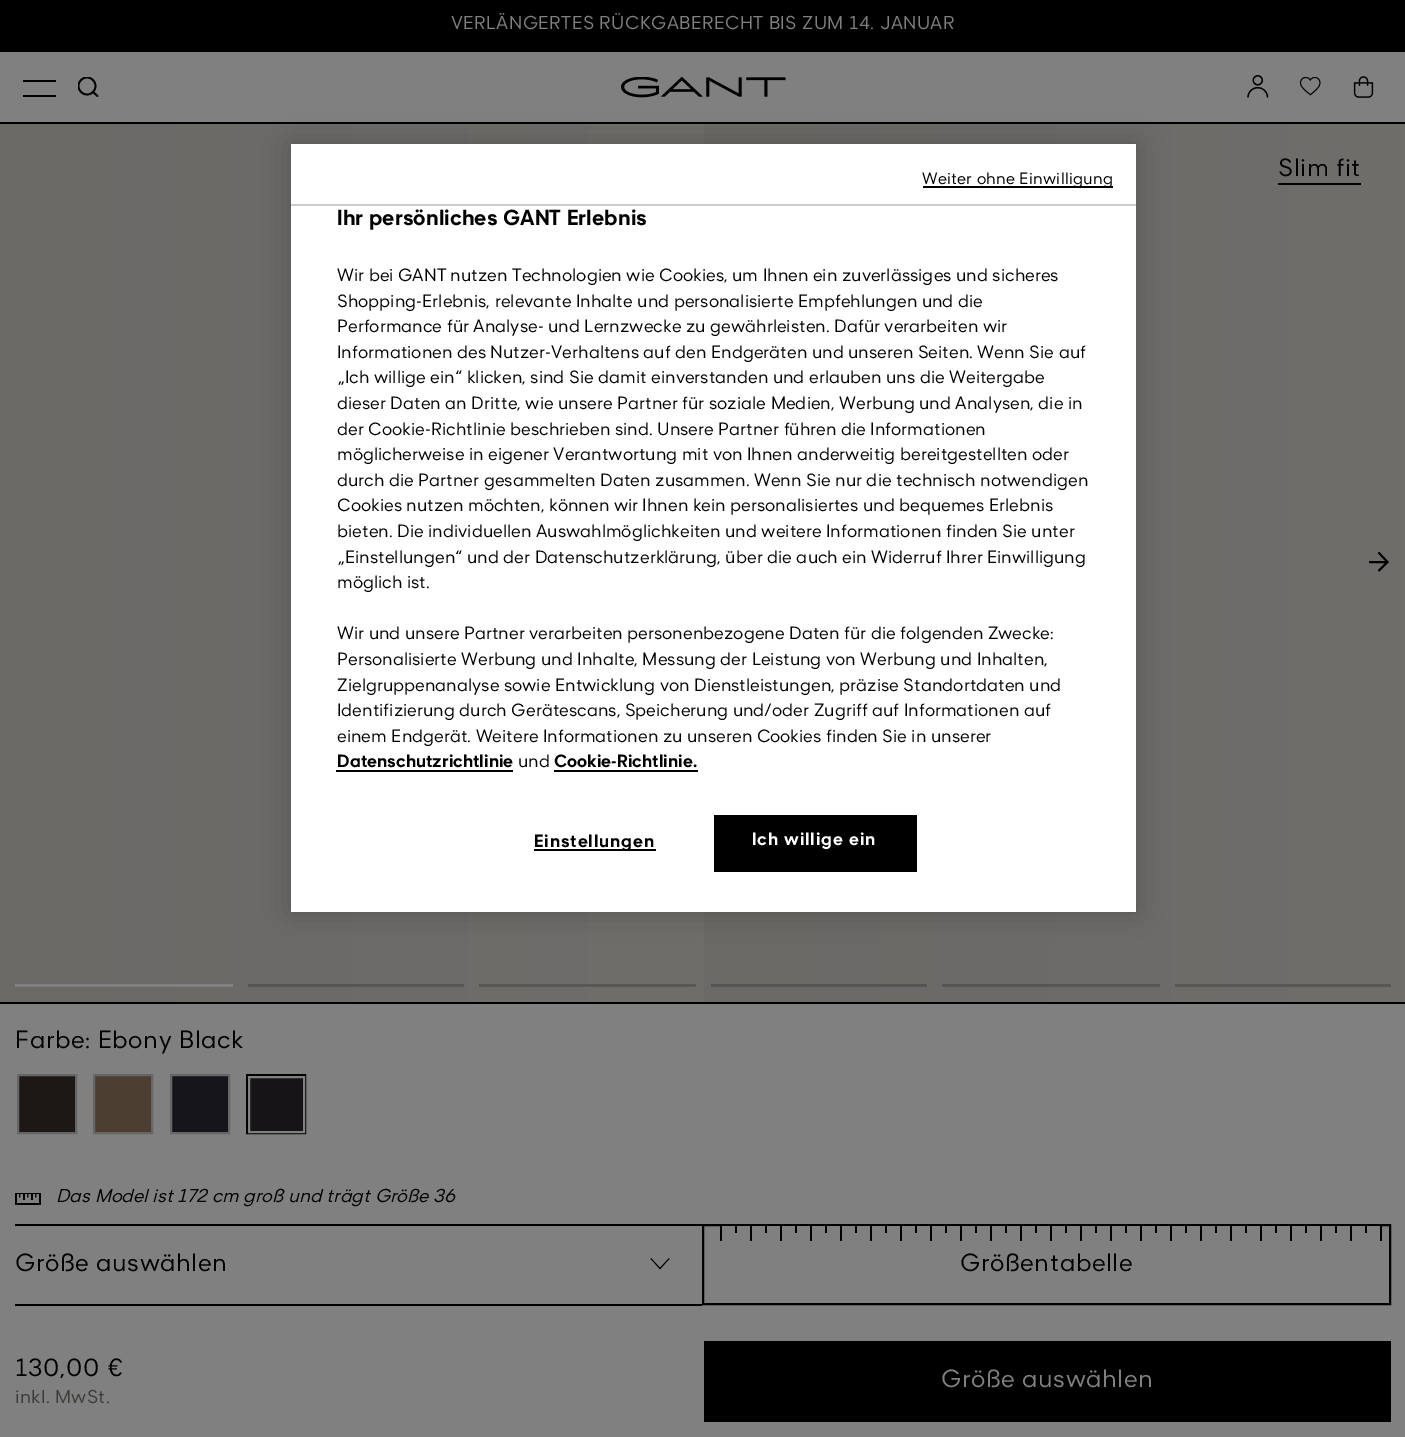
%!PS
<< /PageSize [1405 1437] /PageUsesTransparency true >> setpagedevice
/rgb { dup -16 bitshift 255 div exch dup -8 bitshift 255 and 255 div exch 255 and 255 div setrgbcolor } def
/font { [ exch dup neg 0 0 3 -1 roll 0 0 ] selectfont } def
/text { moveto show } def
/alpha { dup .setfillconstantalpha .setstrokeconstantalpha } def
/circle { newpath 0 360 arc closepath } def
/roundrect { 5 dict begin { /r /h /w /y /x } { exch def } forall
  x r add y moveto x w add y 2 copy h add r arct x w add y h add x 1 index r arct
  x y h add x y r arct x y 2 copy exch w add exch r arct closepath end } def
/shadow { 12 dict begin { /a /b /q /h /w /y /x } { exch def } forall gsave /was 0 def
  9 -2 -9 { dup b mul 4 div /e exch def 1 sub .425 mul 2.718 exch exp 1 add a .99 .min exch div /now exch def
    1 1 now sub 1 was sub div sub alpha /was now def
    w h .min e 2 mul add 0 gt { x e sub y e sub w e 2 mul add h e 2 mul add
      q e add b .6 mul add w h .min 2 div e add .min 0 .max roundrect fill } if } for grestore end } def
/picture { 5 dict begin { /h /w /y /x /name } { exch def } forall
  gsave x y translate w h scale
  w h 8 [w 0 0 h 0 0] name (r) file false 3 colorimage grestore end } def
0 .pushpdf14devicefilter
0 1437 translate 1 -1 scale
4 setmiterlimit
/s1 { /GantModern-Italic 18 font 16#000000 rgb } def
/s2 { /GantModern-Bold 21 font 16#000000 rgb } def
/s3 { /GantModern-Regular 17.05 font 16#000000 rgb } def
/s4 { /GantModern-Bold 17.05 font 16#000000 rgb } def
16#808080 rgb
0 0 1405 1437 rectfill
16#000000 rgb
0 0 1405 52 rectfill
/GantModern-Regular 18 font
16#808080 rgb
451 29 moveto 0.35 0 (VERLÄNGERTES RÜCKGABERECHT BIS ZUM 14. JANUAR) ashow
16#000000 rgb
0 122 1405 2 rectfill
23 80 33 2 rectfill
23 95 33 2 rectfill
1.8 setlinewidth
1 setlinecap
1 setlinejoin
93 92 moveto 97.5 96 lineto stroke
gsave
78 77 21 21 rectclip
0 setlinecap
0 setlinejoin
87 86 8.5 circle stroke
grestore
(pic1.raw) 621 77 165 21 picture
(pic2.raw) 1247 75 22 23 picture
(pic3.raw) 1299 77 22 19 picture
(pic4.raw) 1353 76 21 22 picture
0 1002 1405 2 rectfill
gsave 0 124 moveto 704 124 lineto 704 1002 lineto 0 1002 lineto closepath clip newpath
<< /ShadingType 2 /ColorSpace /DeviceRGB /Coords [0 563 704 563] /Extend [true true] /Function << /FunctionType 2 /Domain [0 1] /C0 [0.42 0.412 0.4] /C1 [0.435 0.431 0.42] /N 1 >> >> shfill grestore
gsave 248 984 moveto 464 984 lineto 464 987 lineto 248 987 lineto closepath clip newpath
<< /ShadingType 2 /ColorSpace /DeviceRGB /Coords [0 563 704 563] /Extend [true true] /Function << /FunctionType 2 /Domain [0 1] /C0 [0.333 0.329 0.322] /C1 [0.349 0.345 0.333] /N 1 >> >> shfill grestore
gsave 479 984 moveto 696 984 lineto 696 987 lineto 479 987 lineto closepath clip newpath
<< /ShadingType 2 /ColorSpace /DeviceRGB /Coords [0 563 704 563] /Extend [true true] /Function << /FunctionType 2 /Domain [0 1] /C0 [0.333 0.329 0.322] /C1 [0.349 0.345 0.333] /N 1 >> >> shfill grestore
gsave 704 124 moveto 1405 124 lineto 1405 1002 lineto 704 1002 lineto closepath clip newpath
<< /ShadingType 2 /ColorSpace /DeviceRGB /Coords [704 563 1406 563] /Extend [true true] /Function << /FunctionType 2 /Domain [0 1] /C0 [0.42 0.412 0.4] /C1 [0.435 0.431 0.42] /N 1 >> >> shfill grestore
gsave 711 984 moveto 927 984 lineto 927 987 lineto 711 987 lineto closepath clip newpath
<< /ShadingType 2 /ColorSpace /DeviceRGB /Coords [704 563 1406 563] /Extend [true true] /Function << /FunctionType 2 /Domain [0 1] /C0 [0.333 0.329 0.322] /C1 [0.349 0.345 0.333] /N 1 >> >> shfill grestore
gsave 942 984 moveto 1160 984 lineto 1160 987 lineto 942 987 lineto closepath clip newpath
<< /ShadingType 2 /ColorSpace /DeviceRGB /Coords [704 563 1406 563] /Extend [true true] /Function << /FunctionType 2 /Domain [0 1] /C0 [0.333 0.329 0.322] /C1 [0.349 0.345 0.333] /N 1 >> >> shfill grestore
gsave 1175 984 moveto 1391 984 lineto 1391 987 lineto 1175 987 lineto closepath clip newpath
<< /ShadingType 2 /ColorSpace /DeviceRGB /Coords [704 563 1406 563] /Extend [true true] /Function << /FunctionType 2 /Domain [0 1] /C0 [0.333 0.329 0.322] /C1 [0.349 0.345 0.333] /N 1 >> >> shfill grestore
/GantModern-Regular 24 font
1278 176 moveto 0.5 0 (Slim fit) ashow
1278 183 83 2 rectfill
1.9 setlinewidth
0 setlinecap
0 setlinejoin
1378.5 571 moveto 1387.5 562 lineto 1378.5 552.5 lineto 1387.5 562 moveto 1369 562 lineto stroke
16#808080 rgb
15 984 218 3 rectfill
16#000000 rgb
15 1048 moveto 0.5 0 (Farbe: Ebony Black) ashow
16#1D1716 rgb
18 1075 moveto 76 1075 lineto 76 1133 lineto 18 1133 lineto closepath gsave fill grestore
16#666666 rgb
2 setlinewidth
stroke
16#4C3E31 rgb
94 1075 moveto 152 1075 lineto 152 1133 lineto 94 1133 lineto closepath gsave fill grestore
16#666666 rgb
stroke
16#15151B rgb
171 1075 moveto 229 1075 lineto 229 1133 lineto 171 1133 lineto closepath gsave fill grestore
16#666666 rgb
stroke
16#161416 rgb
250 1078 53 53 rectfill
16#000000 rgb
247 1075 58 58 rectstroke
16#808080 rgb
249 1077 55 55 rectstroke
(pic5.raw) 15 1193 26 12 picture
s1
(Das Model ist 172 cm groß und trägt Größe 36) 56 1202 text
15 1224 687 2 rectfill
15 1304 687 2 rectfill
/GantModern-Regular 24 font
15 1271 moveto 0.5 0 (Größe auswählen) ashow
(pic6.raw) 650 1258 20 12 picture
703 1225 687 79 rectstroke
(pic7.raw) 720 1226 662 7 picture
(pic8.raw) 720 1233 662 8 picture
960 1271 moveto 0.5 0 (Größentabelle) ashow
15 1376 moveto 0.5 0 (130,00 €) ashow
/GantModern-Regular 18 font
16#3D3A37 rgb
15 1403 moveto 0.35 0 (inkl. MwSt.) ashow
16#000000 rgb
704 1341 687 81 rectfill
/GantModern-Regular 24 font
16#808080 rgb
941 1387 moveto 0.5 0 (Größe auswählen) ashow
16#000000 rgb
291 144 845 768 0 13.5 0.2 shadow
16#FFFFFF rgb
291 144 845 768 rectfill
16#000000 rgb
923 186 190 2 rectfill
/GantModern-Regular 15.75 font
922 184 moveto 0.2 0 (Weiter ohne Einwilligung) ashow
16#CCCCCC rgb
291 204 845 2 rectfill
s2
(Ihr persönliches GANT Erlebnis) 337 225 text
s3
(Wir bei GANT nutzen Technologien wie Cookies, um Ihnen ein zuverlässiges und sicheres) 337 281 text
(Shopping-Erlebnis, relevante Inhalte und personalisierte Empfehlungen und die) 337 307 text
(Performance für Analyse- und Lernzwecke zu gewährleisten. Dafür verarbeiten wir) 337 332 text
(Informationen des Nutzer-Verhaltens auf den Endgeräten und unseren Seiten. Wenn Sie auf) 337 358 text
(„Ich willige ein“ klicken, sind Sie damit einverstanden und erlauben uns die Weitergabe) 337 383 text
(dieser Daten an Dritte, wie unsere Partner für soziale Medien, Werbung und Analysen, die in) 337 409 text
(der Cookie-Richtlinie beschrieben sind. Unsere Partner führen die Informationen) 337 435 text
(möglicherweise in eigener Verantwortung mit von Ihnen anderweitig bereitgestellten oder) 337 460 text
(durch die Partner gesammelten Daten zusammen. Wenn Sie nur die technisch notwendigen) 337 486 text
(Cookies nutzen möchten, können wir Ihnen kein personalisiertes und bequemes Erlebnis) 337 511 text
(bieten. Die individuellen Auswahlmöglichkeiten und weitere Informationen finden Sie unter) 337 537 text
(„Einstellungen“ und der Datenschutzerklärung, über die auch ein Widerruf Ihrer Einwilligung) 337 563 text
(möglich ist.) 337 588 text
(Wir und unsere Partner verarbeiten personenbezogene Daten für die folgenden Zwecke:) 337 639 text
(Personalisierte Werbung und Inhalte, Messung der Leistung von Werbung und Inhalten,) 337 665 text
(Zielgruppenanalyse sowie Entwicklung von Dienstleistungen, präzise Standortdaten und) 337 691 text
(Identifizierung durch Gerätescans, Speicherung und/oder Zugriff auf Informationen auf) 337 716 text
(einem Endgerät. Weitere Informationen zu unseren Cookies finden Sie in unserer) 337 742 text
s4
(Datenschutzrichtlinie) 337 767 text
336 770 177 2 rectfill
s3
(und) 518 767 text
s4
(Cookie-Richtlinie.) 554 767 text
554 770 144 2 rectfill
534 849 122 2 rectfill
534 847 moveto 0.8 0 (Einstellungen) ashow
714 815 203 57 rectfill
16#FFFFFF rgb
752 845 moveto 0.8 0 (Ich willige ein) ashow
.poppdf14devicefilter showpage
